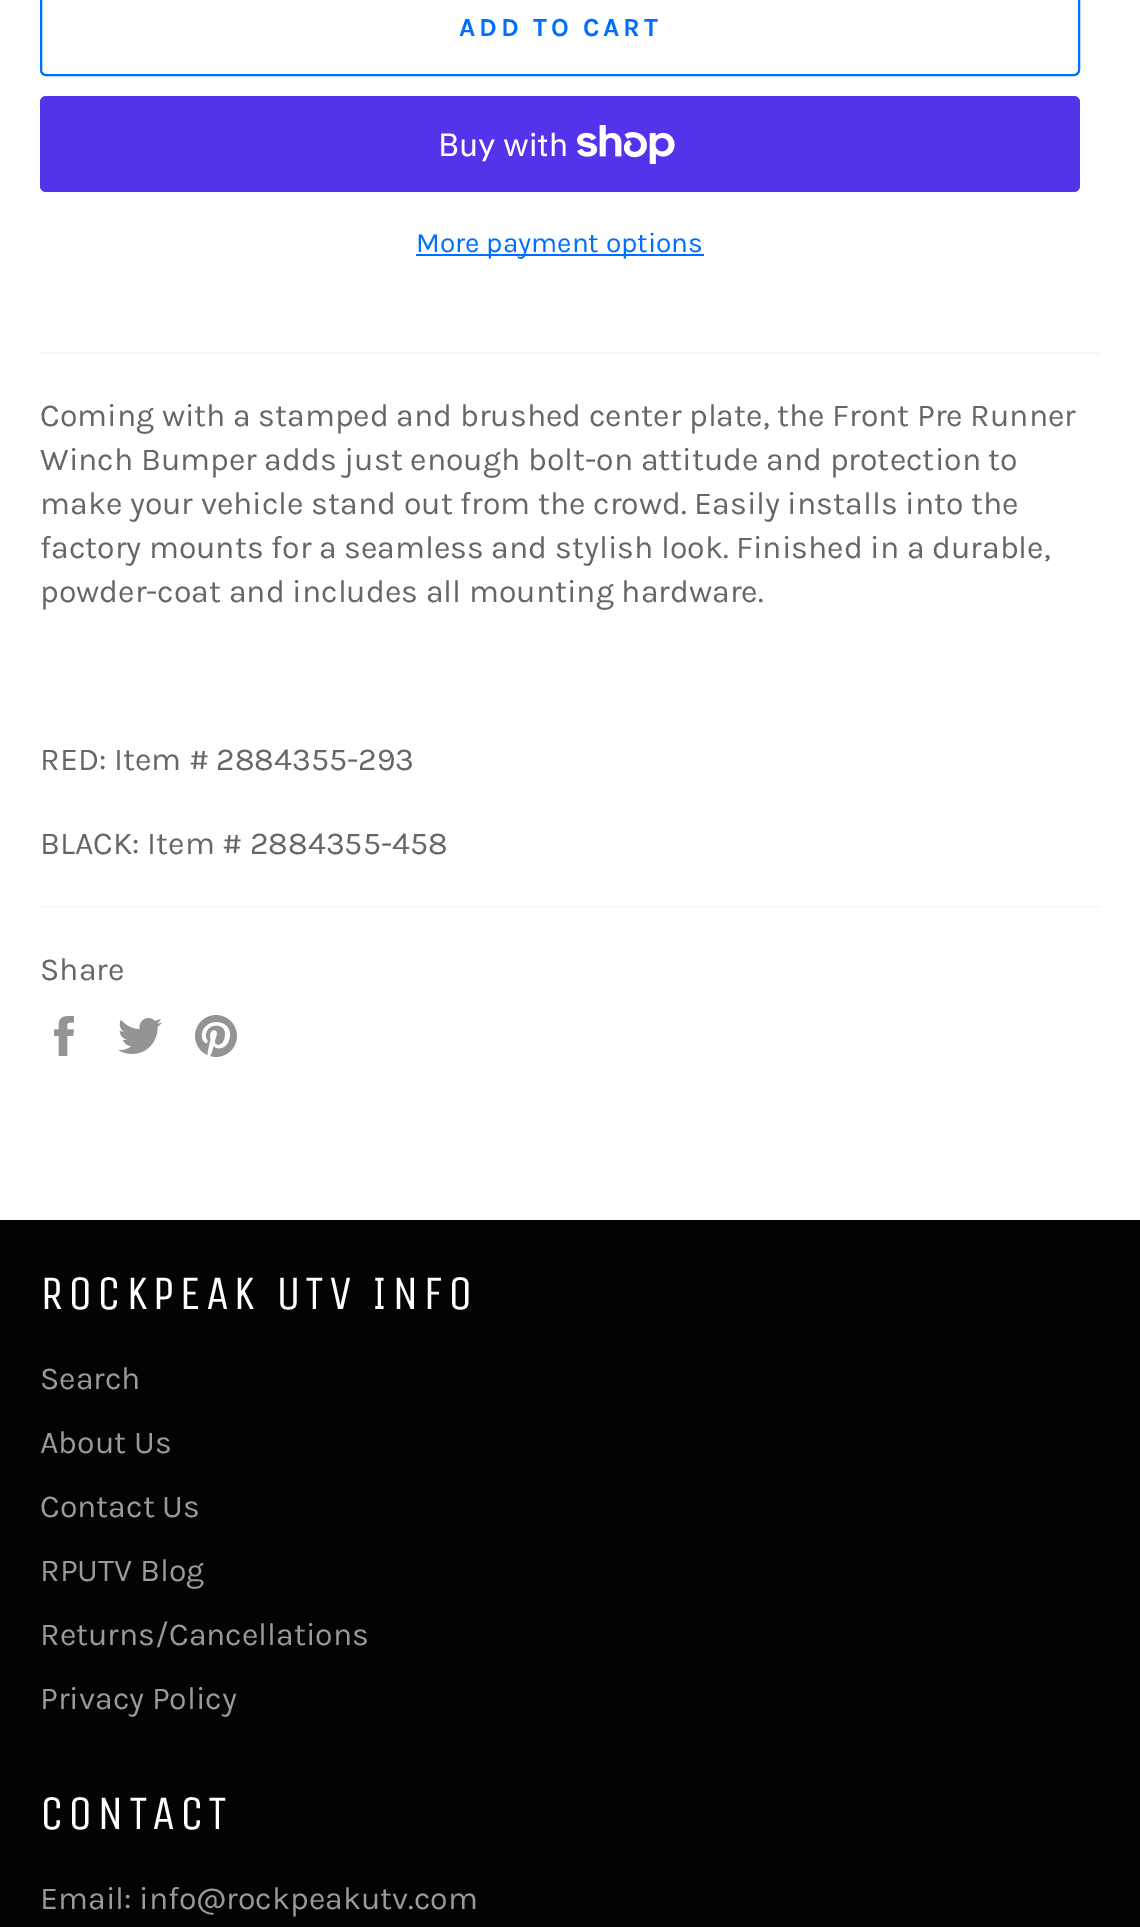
%!PS
<< /PageSize [1140 1927] >> setpagedevice
/rgb { dup -16 bitshift 255 div exch dup -8 bitshift 255 and 255 div exch 255 and 255 div setrgbcolor } def
/font { [ exch dup neg 0 0 3 -1 roll 0 0 ] selectfont } def
/text { moveto show } def
/roundrect { 5 dict begin { /r /h /w /y /x } { exch def } forall
  x r add y moveto x w add y 2 copy h add r arct x w add y h add x 1 index r arct
  x y h add x y r arct x y 2 copy exch w add exch r arct closepath end } def
/picture { 5 dict begin { /h /w /y /x /name } { exch def } forall
  gsave x y translate w h scale
  w h 8 [w 0 0 h 0 0] name (r) file false 3 colorimage grestore end } def
0 1927 translate 1 -1 scale
4 setmiterlimit
/s1 { /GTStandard-Regular 32 font 16#FFFFFF rgb } def
/s2 { /Karla-Regular 28 font 16#006EFF rgb } def
/s3 { /Karla-Regular 32 font 16#666666 rgb } def
/s4 { /Karla-Regular 32 font 16#9A9A9A rgb } def
16#FFFFFF rgb
0 0 1140 1927 rectfill
16#006EFF rgb
2 setlinewidth
41 -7 1038 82 5 roundrect stroke
/Karla-Bold 26 font
459 36 moveto 3.9 0 (ADD TO CART) ashow
16#5433EB rgb
40 96 1040 96 6 roundrect fill
s1
(Buy with) 438 156 text
(pic1.raw) 577 125 98 39 picture
16#006EFF rgb
416 254 288 2 rectfill
s2
(More payment options) 416 252 text
16#F7F7F7 rgb
40 352 1060 2 rectfill
s3
(Coming with a stamped and brushed center plate, the Front Pre Runner) 40 426 text
(Winch Bumper adds just enough bolt-on attitude and protection to) 40 470 text
(make your vehicle stand out from the crowd. Easily installs into the) 40 514 text
(factory mounts for a seamless and stylish look. Finished in a durable,) 40 558 text
(powder-coat and includes all mounting hardware.) 40 602 text
(RED: Item # 2884355-293) 40 770 text
(BLACK: Item # 2884355-458) 40 854 text
16#F7F7F7 rgb
40 906 1060 2 rectfill
s3
(Share) 40 980 text
(pic2.raw) 54 1016 20 40 picture
(pic3.raw) 118 1018 44 36 picture
(pic4.raw) 195 1015 42 42 picture
16#030303 rgb
0 1220 1140 707 rectfill
/UnicaOne-Regular 48 font
16#FFFFFF rgb
40 1309 moveto 4.75 0 (ROCKPEAK UTV INFO) ashow
s4
(Search) 40 1389 text
(About Us) 40 1453 text
(Contact Us) 40 1517 text
(RPUTV Blog) 40 1581 text
(Returns/Cancellations) 40 1645 text
(Privacy Policy) 40 1709 text
/UnicaOne-Regular 48 font
16#FFFFFF rgb
40 1829 moveto 4.75 0 (CONTACT) ashow
s4
(Email: info@rockpeakutv.com) 40 1909 text
showpage
